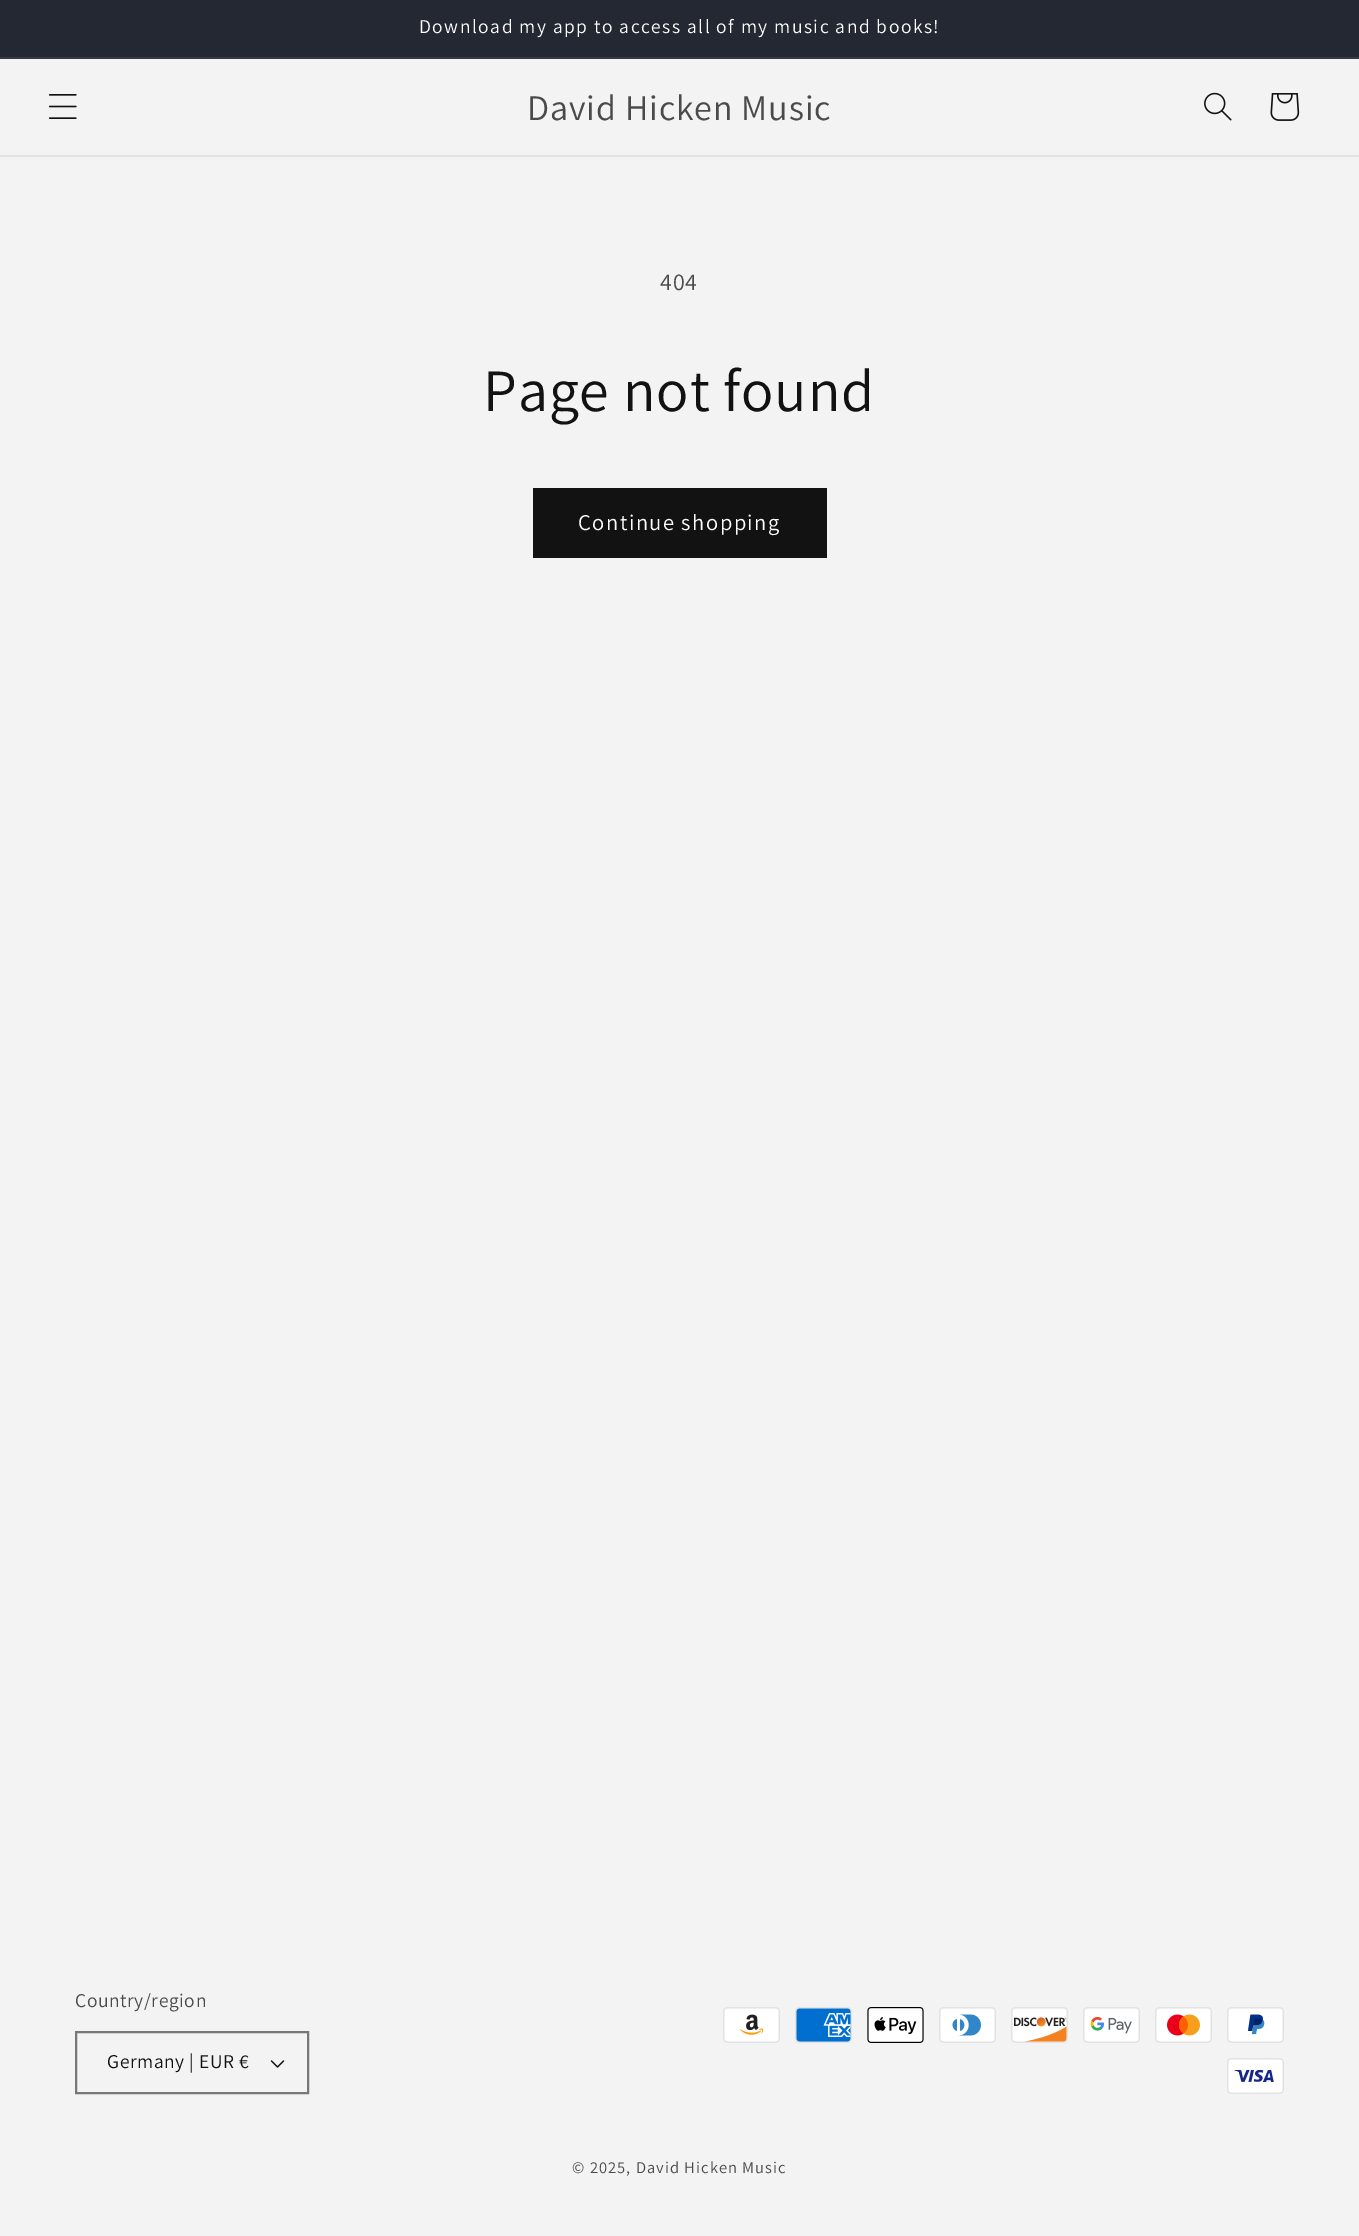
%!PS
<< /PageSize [1359 2236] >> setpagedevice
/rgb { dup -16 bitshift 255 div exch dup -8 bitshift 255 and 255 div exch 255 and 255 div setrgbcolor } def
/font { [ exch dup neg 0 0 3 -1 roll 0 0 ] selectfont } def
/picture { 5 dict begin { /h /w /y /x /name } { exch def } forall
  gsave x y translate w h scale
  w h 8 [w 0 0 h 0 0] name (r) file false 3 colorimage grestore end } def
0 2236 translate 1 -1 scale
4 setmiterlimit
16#F3F3F3 rgb
0 0 1359 2236 rectfill
16#242833 rgb
0 0 1359 57 rectfill
16#363943 rgb
0 57 1359 2 rectfill
/Assistant-Regular 19.5 font
16#FFFFFF rgb
419 33 moveto 1.5 0 (Download my app to access all of my music and books!) ashow
16#E1E1E1 rgb
0 155 1359 2 rectfill
(pic1.raw) 48 94 29 25 picture
/Assistant-Regular 36 font
16#4A4A4A rgb
527 120 moveto 0.9 0 (David Hicken Music) ashow
(pic2.raw) 1204 92 28 29 picture
(pic3.raw) 1270 93 30 28 picture
/Assistant-Regular 24 font
660 290 moveto 0.9 0 (404) ashow
/Assistant-Regular 60 font
16#121212 rgb
483 411 moveto 0.9 0 (Page not found) ashow
533 488 294 70 rectfill
/Assistant-Regular 22.5 font
16#FFFFFF rgb
578 530 moveto 1.5 0 (Continue shopping) ashow
/Assistant-Regular 19.5 font
16#4A4A4A rgb
75 2007 moveto 0.6 0 (Country/region) ashow
(pic4.raw) 270 2060 15 8 picture
16#777777 rgb
2 setlinewidth
76 2032 232 61 rectstroke
16#121212 rgb
107 2068 moveto 0.6 0 (Germany | EUR €) ashow
(pic5.raw) 723 2007 57 36 picture
(pic6.raw) 795 2007 57 36 picture
(pic7.raw) 867 2007 57 36 picture
(pic8.raw) 939 2007 57 36 picture
(pic9.raw) 1011 2007 57 36 picture
(pic10.raw) 1083 2007 57 36 picture
(pic11.raw) 1155 2007 57 36 picture
(pic12.raw) 1227 2007 57 36 picture
(pic13.raw) 1227 2058 57 36 picture
/Assistant-Regular 16.5 font
16#4A4A4A rgb
572 2173 moveto 1.05 0 (© 2025, David Hicken Music) ashow
showpage
